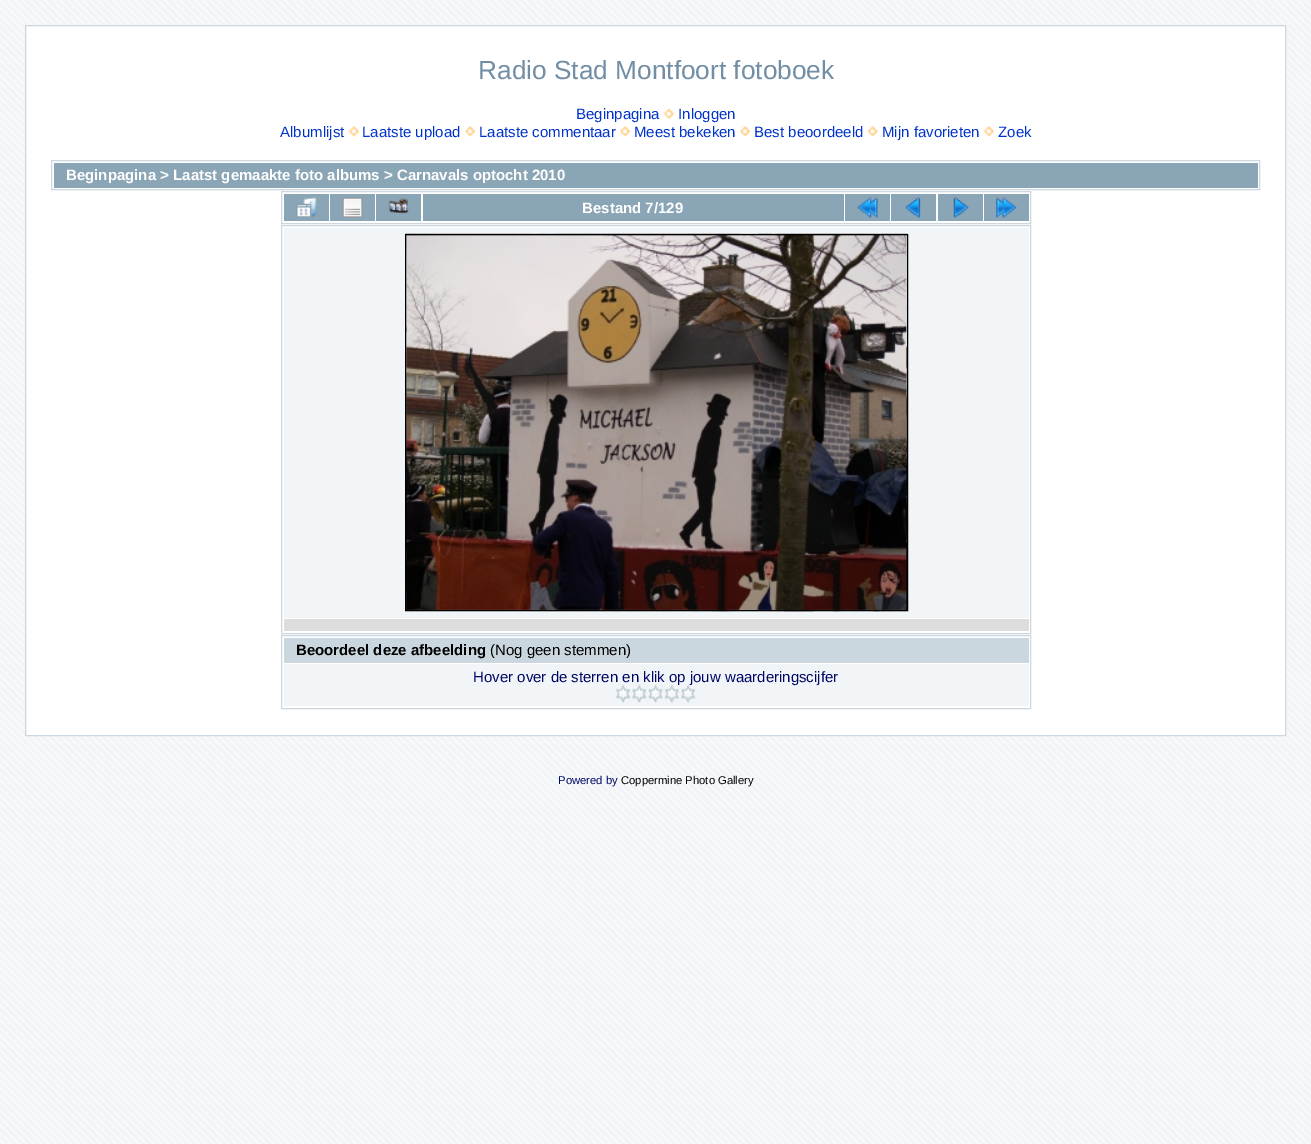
%!PS
<< /PageSize [1311 1144] >> setpagedevice
/rgb { dup -16 bitshift 255 div exch dup -8 bitshift 255 and 255 div exch 255 and 255 div setrgbcolor } def
/font { [ exch dup neg 0 0 3 -1 roll 0 0 ] selectfont } def
/text { moveto show } def
/picture { 5 dict begin { /h /w /y /x /name } { exch def } forall
  gsave x y translate w h scale
  w h 8 [w 0 0 h 0 0] name (r) file false 3 colorimage grestore end } def
0 1144 translate 1 -1 scale
4 setmiterlimit
/s1 { /LiberationSans-Regular 26.25 font 16#718EA5 rgb } def
/s2 { /LiberationSans-Regular 15 font 16#0033CC rgb } def
/s3 { /LiberationSans-Bold 15 font 16#FFFFFF rgb } def
/s4 { /LiberationSans-Bold 15 font 16#000000 rgb } def
/s5 { /LiberationSans-Regular 15 font 16#000000 rgb } def
/s6 { /LiberationSans-Regular 15 font 16#000666 rgb } def
/s7 { /LiberationSans-Regular 11.25 font 16#000666 rgb } def
/s8 { /LiberationSans-Regular 11.25 font 16#000000 rgb } def
16#F2F5F7 rgb
0 0 1311 1144 rectfill
(pic1.raw) 0 0 1311 1144 picture
16#FFFFFF rgb
25.5 25.5 moveto 1285.5 25.5 lineto 1285.5 735.5 lineto 25.5 735.5 lineto closepath gsave fill grestore
16#CCD7E0 rgb
stroke
s1
(Radio Stad Montfoort fotoboek) 478 79 text
s2
(Beginpagina) 576 119 text
(pic2.raw) 663 108 11 11 picture
(Inloggen) 678 119 text
(Albumlijst) 280 137 text
(pic3.raw) 348 126 11 11 picture
(Laatste upload) 362 137 text
(pic4.raw) 465 126 10 11 picture
(Laatste commentaar) 479 137 text
(pic5.raw) 620 126 10 11 picture
(Meest bekeken) 634 137 text
(pic4.raw) 740 126 10 11 picture
(Best beoordeeld) 754 137 text
(pic6.raw) 867 126 11 11 picture
(Mijn favorieten) 882 137 text
(pic3.raw) 983 126 11 11 picture
(Zoek) 998 137 text
16#CCD7E0 rgb
51.5 160.5 1208 29 rectstroke
16#8AA5B5 rgb
54 163 1204 25 rectfill
s3
(Beginpagina > Laatst gemaakte foto albums > Carnavals optocht 2010) 66 180 text
16#CCD7E0 rgb
281.5 191.5 749 32 rectstroke
16#8AA5B5 rgb
284 194 45 27 rectfill
(pic7.raw) 296 197 21 21 picture
330 194 45 27 rectfill
(pic8.raw) 342 197 21 21 picture
376 194 45 27 rectfill
(pic9.raw) 388 198 21 16 picture
423 194 421 27 rectfill
s3
(Bestand 7/129) 582 213 text
16#8AA5B5 rgb
845 194 45 27 rectfill
(pic10.raw) 857 197 21 21 picture
891 194 45 27 rectfill
(pic11.raw) 905 197 16 21 picture
938 194 45 27 rectfill
(pic12.raw) 953 197 16 21 picture
984 194 45 27 rectfill
(pic13.raw) 996 197 21 21 picture
16#CCD7E0 rgb
281.5 225.5 749 408 rectstroke
16#F2F5F7 rgb
284 228 745 390 rectfill
(pic14.raw) 405 233 503 379 picture
16#000000 rgb
405.5 234.5 502 376 rectstroke
16#DDDDDD rgb
284 619 745 12 rectfill
16#CCD7E0 rgb
281.5 635.5 749 73 rectstroke
16#CBD7DE rgb
284 638 745 25 rectfill
s4
(Beoordeel deze afbeelding) 296 655 text
s5
(\(Nog geen stemmen\)) 490 655 text
16#F2F5F7 rgb
284 664 745 42 rectfill
s6
(Hover over de sterren en klik op jouw waarderingscijfer) 473 682 text
(pic15.raw) 615 685 16 18 picture
(pic16.raw) 631 685 16 18 picture
(pic17.raw) 647 685 16 18 picture
(pic18.raw) 664 685 15 18 picture
(pic19.raw) 680 685 16 18 picture
s7
(Powered by) 558 784 text
s8
(Coppermine Photo Gallery) 621 784 text
showpage
